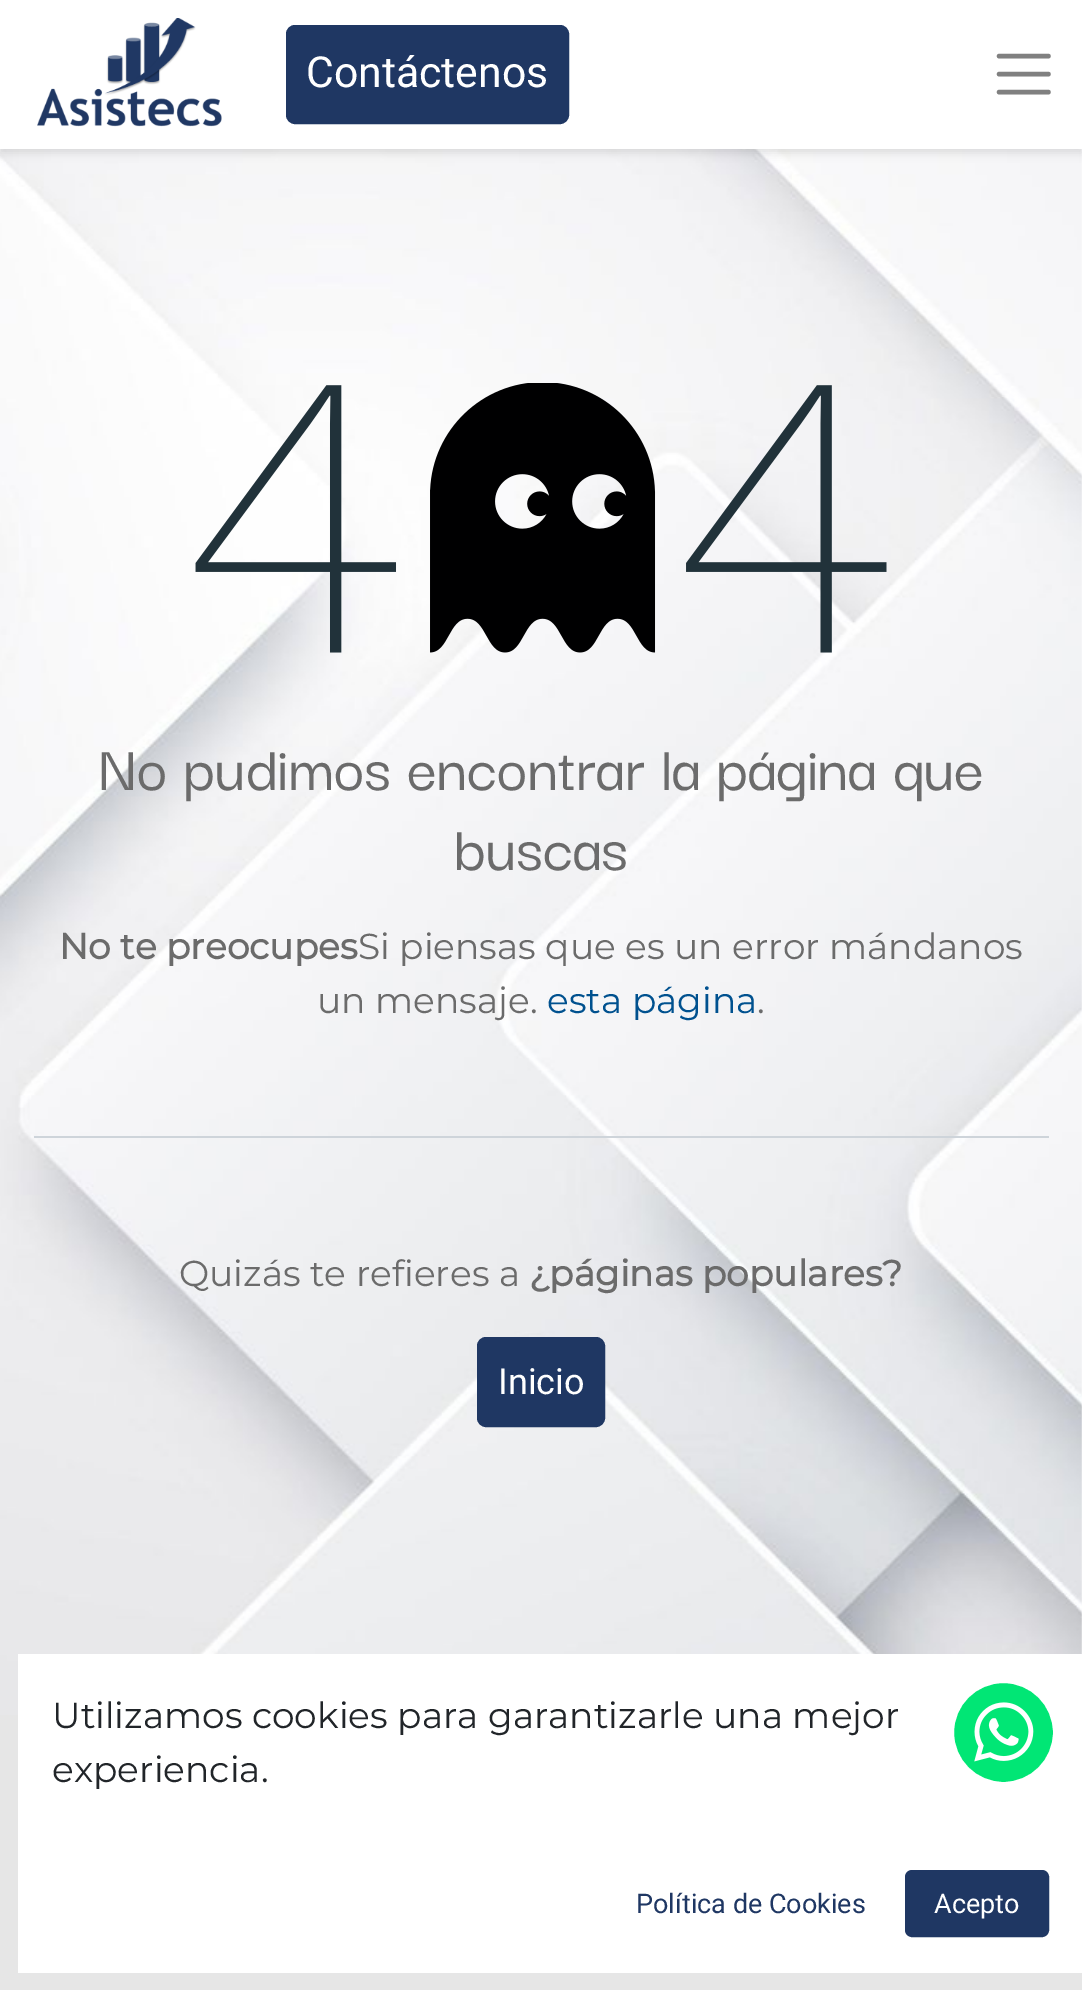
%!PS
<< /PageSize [1082 1990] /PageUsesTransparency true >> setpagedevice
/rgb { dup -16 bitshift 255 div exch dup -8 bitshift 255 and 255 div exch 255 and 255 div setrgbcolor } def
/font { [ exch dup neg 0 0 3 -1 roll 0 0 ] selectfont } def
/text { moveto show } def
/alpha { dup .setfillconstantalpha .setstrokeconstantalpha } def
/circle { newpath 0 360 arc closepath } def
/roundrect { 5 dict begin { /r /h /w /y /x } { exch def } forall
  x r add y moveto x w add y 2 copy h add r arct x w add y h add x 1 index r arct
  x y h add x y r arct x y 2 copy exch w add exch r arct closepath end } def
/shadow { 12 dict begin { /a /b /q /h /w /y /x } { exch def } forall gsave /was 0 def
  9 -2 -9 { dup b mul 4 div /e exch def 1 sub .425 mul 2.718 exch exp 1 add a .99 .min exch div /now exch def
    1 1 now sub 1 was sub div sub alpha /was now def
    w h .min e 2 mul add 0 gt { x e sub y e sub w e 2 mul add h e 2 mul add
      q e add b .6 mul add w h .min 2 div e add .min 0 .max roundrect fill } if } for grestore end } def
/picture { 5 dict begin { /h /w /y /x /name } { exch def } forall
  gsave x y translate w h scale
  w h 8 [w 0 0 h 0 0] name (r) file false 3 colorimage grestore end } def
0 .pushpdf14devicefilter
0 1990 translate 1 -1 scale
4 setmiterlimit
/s1 { /Roboto-Regular 42.75 font 16#FFFFFF rgb } def
/s2 { /DarkerGrotesque-Medium 66.9 font 16#6B6B6B rgb } def
/s3 { /Montserrat-Bold 36 font 16#6B6B6B rgb } def
/s4 { /Montserrat-Regular 36 font 16#6B6B6B rgb } def
/s5 { /Montserrat-Regular 36 font 16#00518F rgb } def
/s6 { /Roboto-Regular 36 font 16#FFFFFF rgb } def
/s7 { /Montserrat-Regular 36 font 16#212529 rgb } def
/s8 { /Roboto-Regular 27 font 16#1F3763 rgb } def
/s9 { /Roboto-Regular 27 font 16#FFFFFF rgb } def
16#FFFFFF rgb
0 0 1082 1990 rectfill
(pic1.raw) 0 149 1082 1566 picture
16#3B3B3B rgb
0 5 1082 148 0 4.5 0.15 shadow
16#FFFFFF rgb
0 0 1082 149 rectfill
(pic2.raw) 37 18 185 109 picture
16#1F3763 rgb
287 26 281 97 8 roundrect gsave fill grestore
2 setlinewidth
stroke
s1
(Contáctenos) 306 87 text
16#808080 rgb
4.5 setlinewidth
1 setlinecap
999 56 moveto 1048.5 56 lineto 999 74 moveto 1048.5 74 lineto 999 92 moveto 1048.5 92 lineto stroke
(pic3.raw) 195 383 692 270 picture
s2
(No pudimos encontrar la página que) 98 790 text
(buscas) 454 870 text
s3
(No te preocupes) 59 959 text
s4
(Si piensas que es un error mándanos) 358 959 text
(un mensaje.) 317 1013 text
s5
(esta página) 547 1013 text
s4
(.) 757 1013 text
16#CED4DA rgb
34 1136 1015 2 rectfill
s4
(Quizás te refieres a) 179 1286 text
s3
(¿páginas populares?) 529 1286 text
16#1F3763 rgb
478 1338 126 88 8 roundrect gsave fill grestore
2 setlinewidth
0 setlinecap
stroke
s6
(Inicio) 498 1394 text
16#E6E6E6 rgb
0 1715 1082 275 rectfill
16#FFFFFF rgb
18 1654 1064 319 rectfill
s7
(Utilizamos cookies para garantizarle una mejor) 52 1728 text
(experiencia.) 52 1782 text
s8
(Política de Cookies) 636 1913 text
906 1871 142 65 6 roundrect gsave fill grestore
stroke
s9
(Acepto) 934 1913 text
16#01E675 rgb
1003.5 1732.5 53 circle gsave fill grestore
16#FFFFFF rgb
7 setlinewidth
stroke
(pic4.raw) 974 1702 60 60 picture
.poppdf14devicefilter showpage
